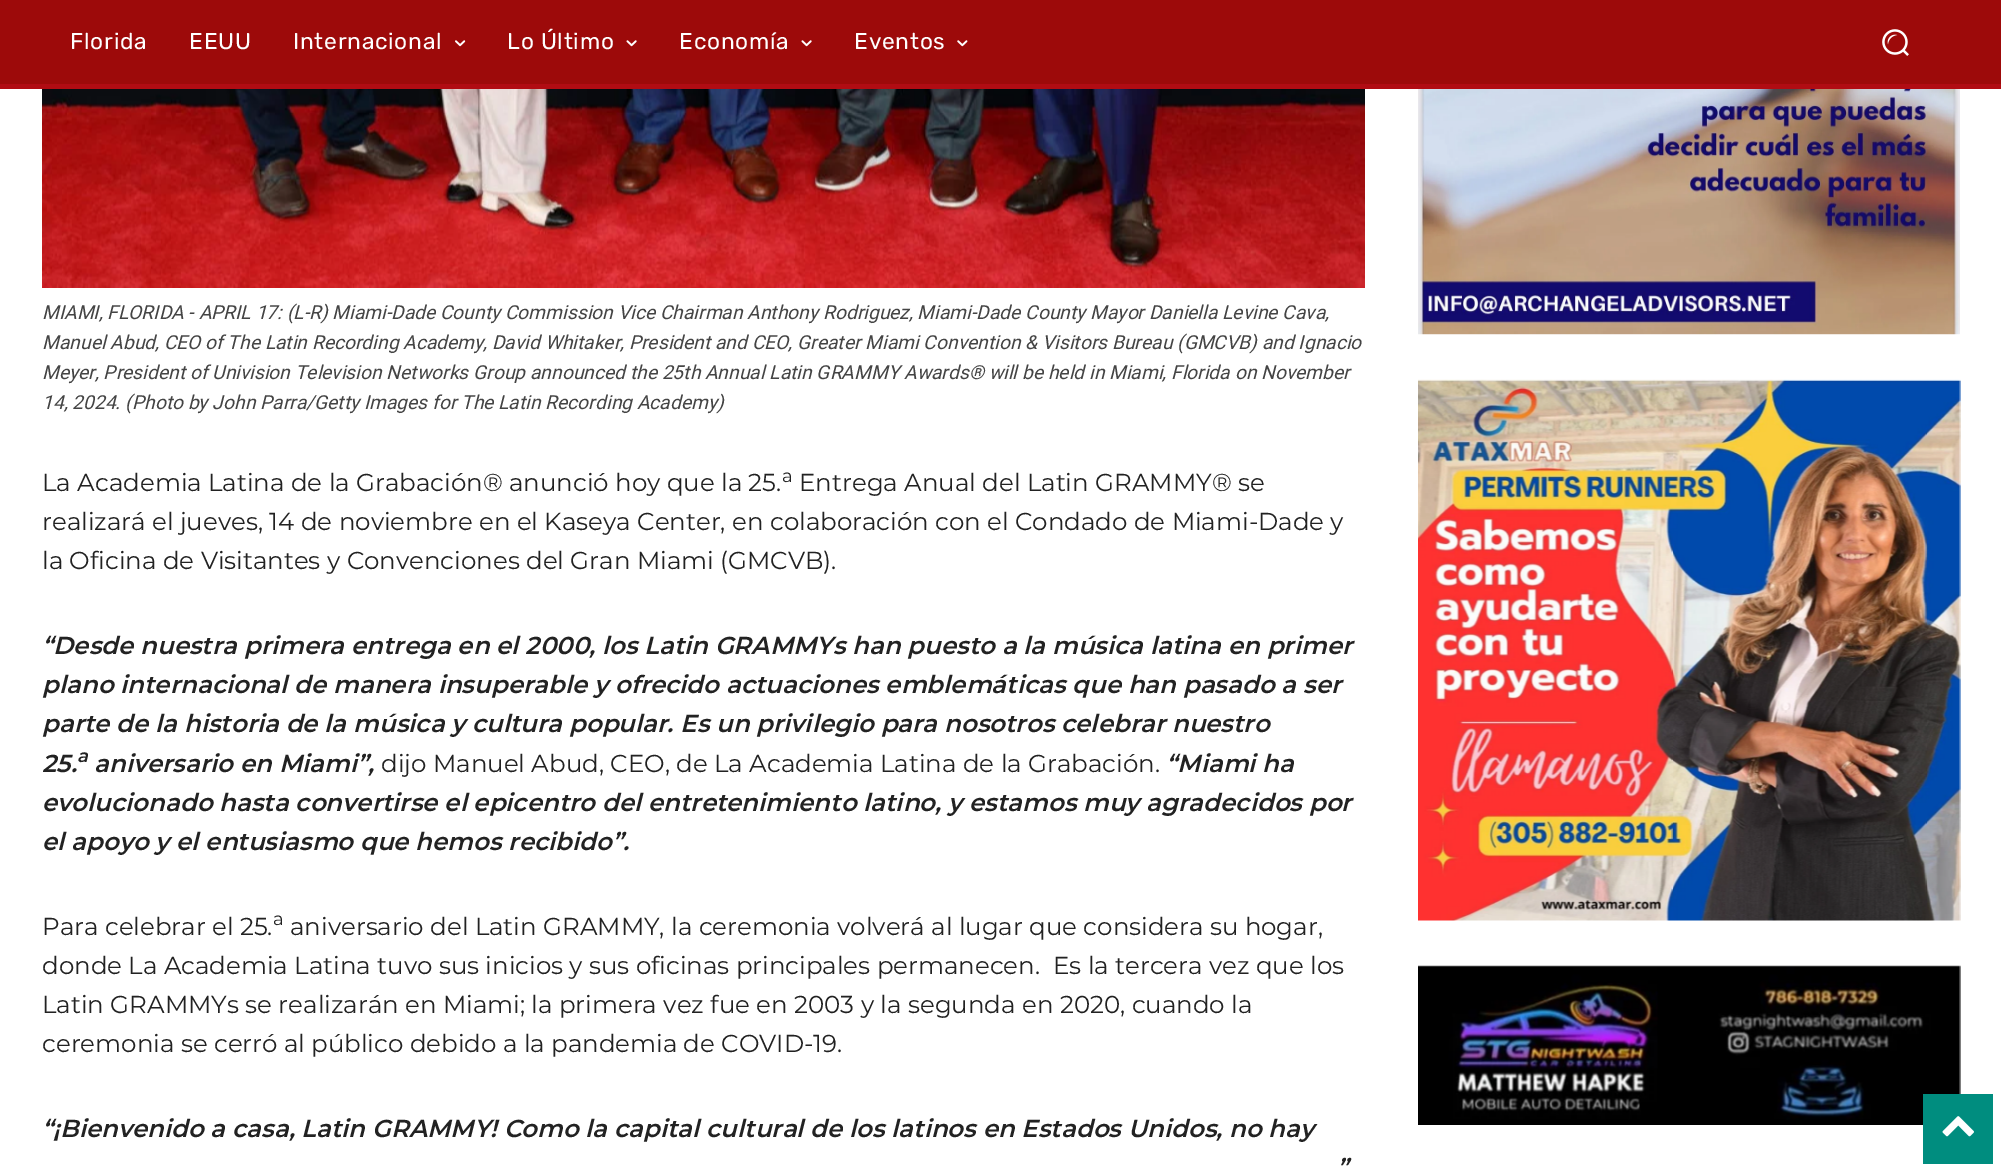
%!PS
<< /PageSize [2001 1170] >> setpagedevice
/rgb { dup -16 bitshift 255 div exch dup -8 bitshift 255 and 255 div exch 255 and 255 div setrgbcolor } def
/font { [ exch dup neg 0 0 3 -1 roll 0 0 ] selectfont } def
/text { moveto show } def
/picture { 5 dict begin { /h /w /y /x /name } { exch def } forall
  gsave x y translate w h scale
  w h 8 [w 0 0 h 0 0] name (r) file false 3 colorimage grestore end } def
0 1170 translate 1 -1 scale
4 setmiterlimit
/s1 { /Roboto-Italic 19.25 font 16#444444 rgb } def
/s2 { /Montserrat-Regular 24.5 font 16#222222 rgb } def
/s3 { /Montserrat-Regular 18 font 16#222222 rgb } def
/s4 { /Montserrat-SemiBoldItalic 24.5 font 16#222222 rgb } def
/s5 { /Montserrat-SemiBoldItalic 18 font 16#222222 rgb } def
16#FFFFFF rgb
0 0 2001 1170 rectfill
16#9D0A0A rgb
0 0 2001 84 rectfill
/Rubik-Regular 22.75 font
16#FFFFFF rgb
70 49 moveto 0.75 0 (Florida) ashow
189 49 moveto 0.75 0 (EEUU) ashow
293 49 moveto 0.75 0 (Internacional) ashow
(pic1.raw) 455 40 11 7 picture
507 49 moveto 0.75 0 (Lo Último) ashow
(pic2.raw) 626 40 11 7 picture
679 49 moveto 0.75 0 (Economía) ashow
(pic2.raw) 801 40 11 7 picture
854 49 moveto 0.75 0 (Eventos) ashow
(pic3.raw) 957 40 11 7 picture
(pic4.raw) 1882 29 27 27 picture
16#B10C13 rgb
0 84 2001 5 rectfill
(pic5.raw) 42 89 1323 199 picture
s1
(MIAMI, FLORIDA - APRIL 17: \(L-R\) Miami-Dade County Commission Vice Chairman Anthony Rodriguez, Miami-Dade County Mayor Daniella Levine Cava,) 42 319 text
(Manuel Abud, CEO of The Latin Recording Academy, David Whitaker, President and CEO, Greater Miami Convention & Visitors Bureau \(GMCVB\) and Ignacio) 42 349 text
(Meyer, President of Univision Television Networks Group announced the 25th Annual Latin GRAMMY Awards® will be held in Miami, Florida on November) 42 379 text
(14, 2024. \(Photo by John Parra/Getty Images for The Latin Recording Academy\)) 42 409 text
s2
(La Academia Latina de la Grabación® anunció hoy que la 25.) 42 491 text
s3
(a) 782 482 text
s2
(Entrega Anual del Latin GRAMMY® se) 799 491 text
(realizará el jueves, 14 de noviembre en el Kaseya Center, en colaboración con el Condado de Miami-Dade y) 42 530 text
(la Oficina de Visitantes y Convenciones del Gran Miami \(GMCVB\).) 42 569 text
s4
(“Desde nuestra primera entrega en el 2000, los Latin GRAMMYs han puesto a la música latina en primer) 42 654 text
(plano internacional de manera insuperable y ofrecido actuaciones emblemáticas que han pasado a ser) 42 693 text
(parte de la historia de la música y cultura popular. Es un privilegio para nosotros celebrar nuestro) 42 732 text
(25.) 42 772 text
s5
(a) 77 762 text
s4
(aniversario en Miami”,) 94 772 text
s2
(dijo Manuel Abud, CEO, de La Academia Latina de la Grabación.) 381 772 text
s4
(“Miami ha) 1166 772 text
(evolucionado hasta convertirse el epicentro del entretenimiento latino, y estamos muy agradecidos por) 42 811 text
(el apoyo y el entusiasmo que hemos recibido”.) 42 850 text
s2
(Para celebrar el 25.) 42 935 text
s3
(a) 273 925 text
s2
(aniversario del Latin GRAMMY, la ceremonia volverá al lugar que considera su hogar,) 290 935 text
(donde La Academia Latina tuvo sus inicios y sus oficinas principales permanecen.  Es la tercera vez que los) 42 974 text
(Latin GRAMMYs se realizarán en Miami; la primera vez fue en 2003 y la segunda en 2020, cuando la) 42 1013 text
(ceremonia se cerró al público debido a la pandemia de COVID-19.) 42 1052 text
s4
(“¡Bienvenido a casa, Latin GRAMMY! Como la capital cultural de los latinos en Estados Unidos, no hay) 42 1137 text
(”) 1337 1176 text
(pic6.raw) 1418 89 542 246 picture
(pic7.raw) 1418 379 543 542 picture
(pic8.raw) 1418 965 543 160 picture
16#008D7F rgb
1923 1094 70 70 rectfill
(pic9.raw) 1942 1116 32 21 picture
showpage
